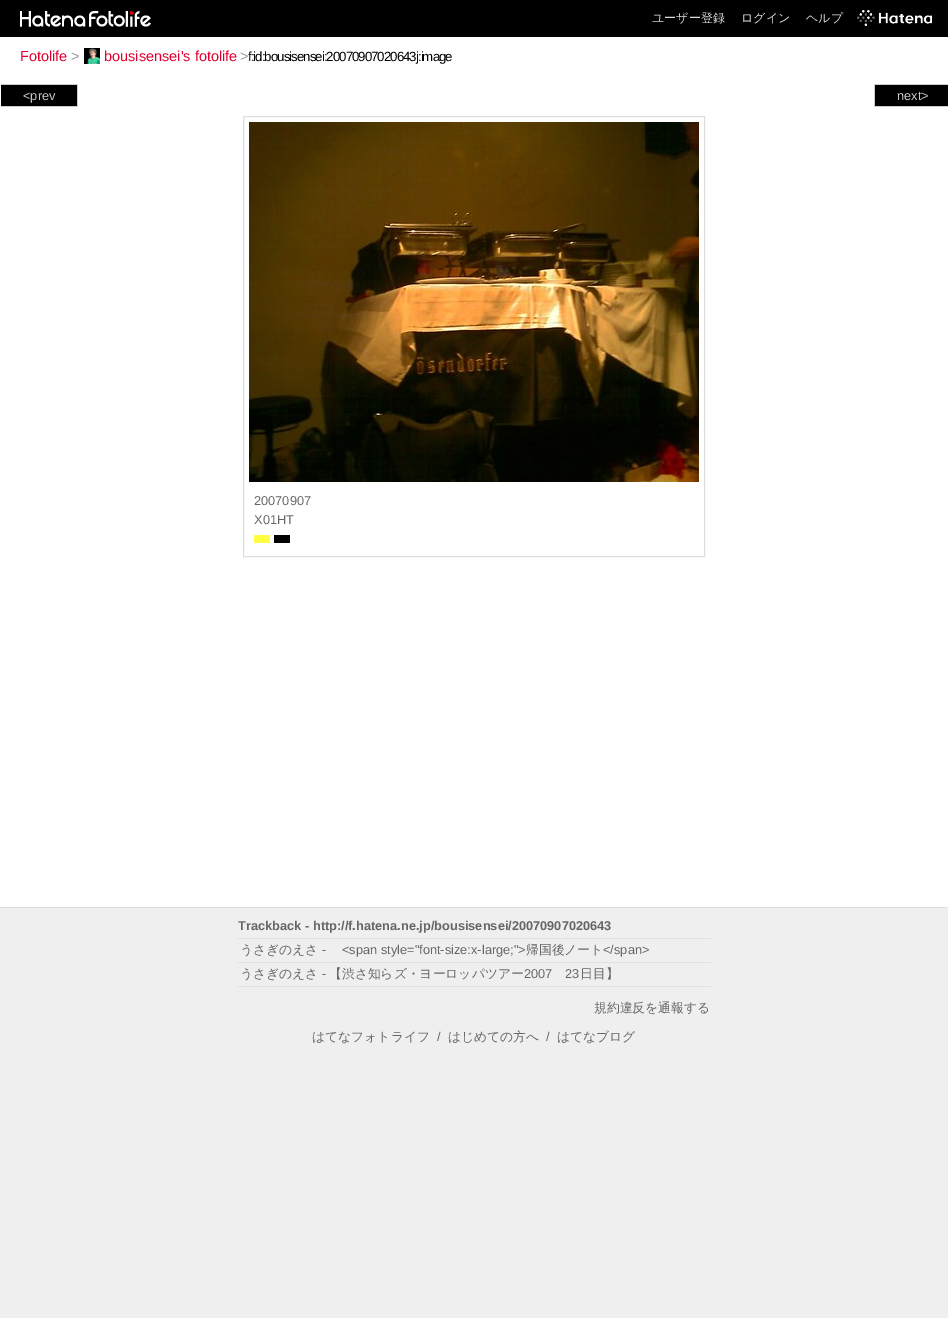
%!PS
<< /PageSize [948 1318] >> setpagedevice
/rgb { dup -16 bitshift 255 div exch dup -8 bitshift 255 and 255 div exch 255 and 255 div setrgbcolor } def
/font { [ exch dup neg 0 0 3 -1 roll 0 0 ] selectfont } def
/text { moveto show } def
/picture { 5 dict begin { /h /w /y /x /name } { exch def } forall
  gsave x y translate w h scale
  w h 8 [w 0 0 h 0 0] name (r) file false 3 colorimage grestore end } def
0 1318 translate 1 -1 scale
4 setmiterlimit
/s1 { /WenQuanYiZenHei-Medium 12 font 16#DDDDDD rgb } def
/s2 { /LiberationSans-Regular 14.5 font 16#DE002F rgb } def
/s3 { /LiberationSans-Regular 14.5 font 16#999999 rgb } def
/s4 { /LiberationSans-Regular 12.8 font 16#CCCCCC rgb } def
/s5 { /LiberationSans-Regular 12.8 font 16#666666 rgb } def
/s6 { /LiberationSans-Bold 12.8 font 16#666666 rgb } def
/s7 { /WenQuanYiZenHei-Medium 12.8 font 16#666666 rgb } def
16#EFEFEF rgb
0 0 948 1318 rectfill
16#000000 rgb
0 0 948 37 rectfill
(pic1.raw) 20 11 66 16 picture
(pic2.raw) 89 11 62 16 picture
s1
(ユーザー登録) 652 22 text
(ログイン) 741 22 text
(ヘルプ) 806 22 text
(pic3.raw) 857 10 75 16 picture
16#FFFFFF rgb
0 37 948 870 rectfill
s2
(Fotolife) 20 61 text
s3
(>) 71 61 text
(pic4.raw) 84 48 16 16 picture
s2
(bousisensei's fotolife) 104 61 text
s3
(>) 240 61 text
/LiberationSans-Regular 13.3 font
16#000000 rgb
248 61 moveto -1 0 (f:id:bousisensei:20070907020643j:image) ashow
16#DEDEDE rgb
0 907 948 1 rectfill
16#000000 rgb
1 85 76 21 rectfill
16#CCCCCC rgb
1 84 77 1 rectfill
77 84 1 23 rectfill
1 106 77 1 rectfill
s4
(<prev) 23 100 text
16#000000 rgb
875 85 73 21 rectfill
16#CCCCCC rgb
874 84 74 1 rectfill
874 106 74 1 rectfill
874 84 1 23 rectfill
(next>) 897 100 text
16#DEDEDE rgb
243.5 116.5 461 440 rectstroke
(pic5.raw) 249 122 450 360 picture
s5
(20070907) 254 505 text
(X01HT) 254 524 text
16#FFFF40 rgb
254 535 16 8 rectfill
16#000000 rgb
274 535 16 8 rectfill
s6
(Trackback - http://f.hatena.ne.jp/bousisensei/20070907020643) 238 930 text
16#E1E1E1 rgb
238 938 473 1 rectfill
238 962 473 1 rectfill
s7
(うさぎのえさ) 240 954 text
s5
(-) 322 954 text
(<span style="font-size:x-large;">) 342 954 text
s7
(帰国後ノート) 526 954 text
s5
(</span>) 603 954 text
16#E1E1E1 rgb
238 986 473 1 rectfill
s7
(うさぎのえさ) 240 978 text
s5
(-) 322 978 text
s7
(【渋さ知らズ・ヨーロッパツアー) 329 978 text
s5
(2007) 524 978 text
(23) 565 978 text
s7
(日目】) 580 978 text
(規約違反を通報する) 594 1012 text
(はてなフォトライフ) 312 1041 text
s5
(/) 437 1041 text
s7
(はじめての方へ) 448 1041 text
s5
(/) 546 1041 text
s7
(はてなブログ) 557 1041 text
showpage
